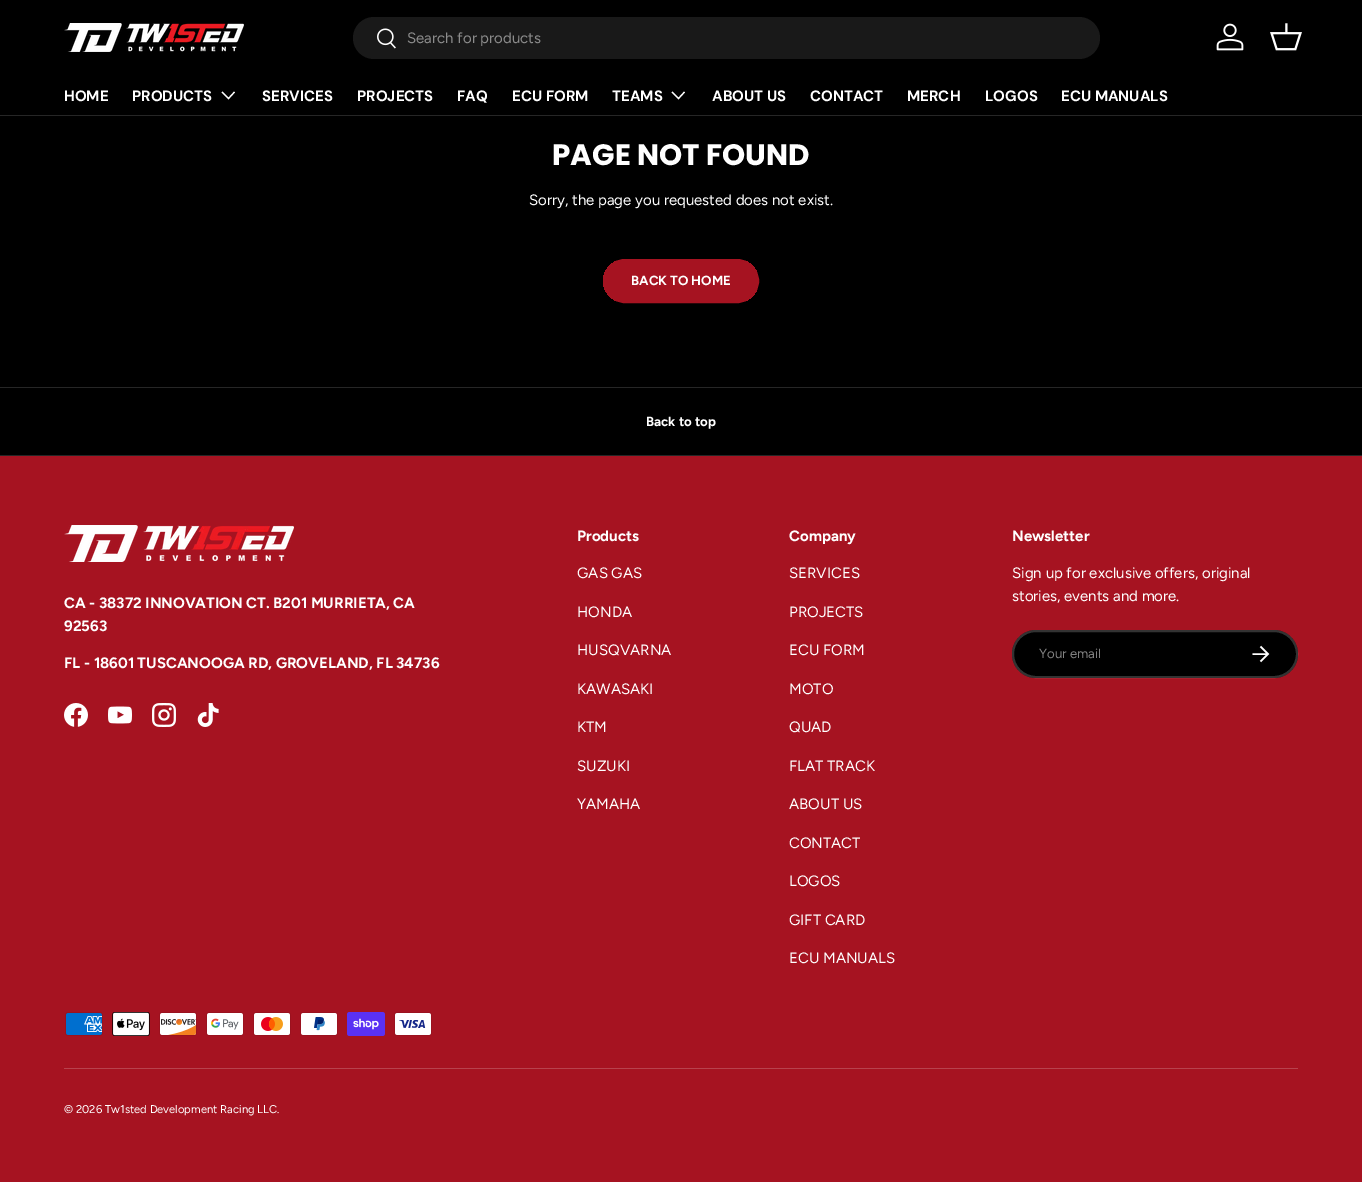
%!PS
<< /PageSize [1362 1182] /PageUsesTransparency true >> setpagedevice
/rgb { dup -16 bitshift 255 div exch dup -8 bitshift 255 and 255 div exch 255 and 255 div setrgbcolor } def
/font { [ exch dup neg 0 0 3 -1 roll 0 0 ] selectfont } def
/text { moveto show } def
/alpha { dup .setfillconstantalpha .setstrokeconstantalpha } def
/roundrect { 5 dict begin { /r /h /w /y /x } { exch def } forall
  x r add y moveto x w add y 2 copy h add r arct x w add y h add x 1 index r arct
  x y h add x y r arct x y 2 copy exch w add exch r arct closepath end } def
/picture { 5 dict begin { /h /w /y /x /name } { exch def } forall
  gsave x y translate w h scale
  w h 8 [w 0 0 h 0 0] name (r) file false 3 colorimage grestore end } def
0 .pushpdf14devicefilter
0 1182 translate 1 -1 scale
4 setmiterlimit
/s1 { /Figtree-Regular 15 font 16#8C8C8C rgb } def
/s2 { /DMSans-Bold 15 font 16#FFFFFF rgb } def
/s3 { /Poppins-Bold 29.5 font 16#FFFFFF rgb } def
/s4 { /Figtree-Regular 15 font 16#FFFFFF rgb } def
/s5 { /Figtree-Bold 13.25 font 16#FFFFFF rgb } def
/s6 { /Figtree-Bold 15 font 16#FFFFFF rgb } def
/s7 { /Figtree-Regular 13.25 font 16#808080 rgb } def
/s8 { /Figtree-Regular 11.25 font 16#FFFFFF rgb } def
16#000000 rgb
0 0 1362 1182 rectfill
16#262626 rgb
0 115 1362 1 rectfill
(pic1.raw) 64 23 180 29 picture
16#191919 rgb
353 17 747 42 21 roundrect fill
(pic2.raw) 377 28 19 21 picture
s1
(Search for products) 407 43 text
(pic3.raw) 1216 23 28 28 picture
(pic4.raw) 1270 23 32 28 picture
s2
(HOME) 64 101 text
(PRODUCTS) 132 101 text
1.2 setlinewidth
234.5 92 moveto 228.5 98.5 lineto 222 92 lineto stroke
(SERVICES) 262 101 text
(PROJECTS) 357 101 text
(FAQ) 457 101 text
(ECU FORM) 512 101 text
(TEAMS) 612 101 text
684.5 92 moveto 678.5 98.5 lineto 672 92 lineto stroke
(ABOUT US) 712 101 text
(CONTACT) 810 101 text
(MERCH) 907 101 text
(LOGOS) 985 101 text
(ECU MANUALS) 1061 101 text
s3
(PAGE NOT FOUND) 552 165 text
s4
(Sorry, the page you requested does not exist.) 529 205 text
gsave
603 259 156 44 22 roundrect clip newpath
gsave 603 261 moveto 757 261 lineto 757 301 lineto 603 301 lineto closepath clip newpath
<< /ShadingType 2 /ColorSpace /DeviceRGB /Coords [310 226 748 336] /Extend [true true] /Function << /FunctionType 3 /Domain [0 1] /Functions [<< /FunctionType 2 /Domain [0 1] /C0 [0.749 0.227 0.275] /C1 [0.749 0.227 0.275] /N 1 >> << /FunctionType 2 /Domain [0 1] /C0 [0.651 0.075 0.129] /C1 [0.651 0.075 0.129] /N 1 >>] /Bounds [0.6] /Encode [0 1 0 1] >> >> shfill grestore
grestore
16#A61321 rgb
2 setlinewidth
604 260 154 42 21 roundrect stroke
s5
(BACK TO HOME) 631 285 text
16#262626 rgb
0 387 1362 1 rectfill
0 455 1362 1 rectfill
s5
(Back to top) 646 426 text
16#A61321 rgb
0 456 1362 726 rectfill
(pic5.raw) 64 525 230 37 picture
s6
(CA - 38372 INNOVATION CT. B201 MURRIETA, CA) 64 608 text
(92563) 64 631 text
(FL - 18601 TUSCANOOGA RD, GROVELAND, FL 34736) 64 668 text
(pic6.raw) 64 703 24 24 picture
(pic7.raw) 108 706 24 18 picture
(pic8.raw) 152 703 24 24 picture
(pic9.raw) 197 703 22 24 picture
(Products) 577 541 text
s4
(GAS GAS) 577 578 text
(HONDA) 577 617 text
(HUSQVARNA) 577 655 text
(KAWASAKI) 577 694 text
(KTM) 577 732 text
(SUZUKI) 577 771 text
(YAMAHA) 577 809 text
s6
(Company) 789 541 text
s4
(SERVICES) 789 578 text
(PROJECTS) 789 617 text
(ECU FORM) 789 655 text
(MOTO) 789 694 text
(QUAD) 789 732 text
(FLAT TRACK) 789 771 text
(ABOUT US) 789 809 text
(CONTACT) 789 848 text
(LOGOS) 789 886 text
(GIFT CARD) 789 925 text
(ECU MANUALS) 789 963 text
s6
(Newsletter) 1012 541 text
s4
(Sign up for exclusive offers, original) 1012 578 text
(stories, events and more.) 1012 601 text
16#000000 rgb
1012 630 286 48 24 roundrect fill
0.2 alpha
16#FFFFFF rgb
1013 631 284 46 23 roundrect stroke
1 alpha
s7
(Your email) 1039 658 text
16#FFFFFF rgb
1.5 setlinewidth
1252.5 654 moveto 1267.5 654 lineto 1260.5 646.5 moveto 1268 654 lineto 1260.5 661.5 lineto stroke
(pic10.raw) 65 1012 38 24 picture
(pic11.raw) 112 1012 38 24 picture
(pic12.raw) 159 1012 38 24 picture
(pic13.raw) 206 1012 38 24 picture
(pic14.raw) 253 1012 38 24 picture
(pic15.raw) 300 1012 38 24 picture
(pic16.raw) 347 1012 38 24 picture
(pic17.raw) 394 1012 38 24 picture
16#B8424D rgb
64 1068 1234 1 rectfill
s8
(© 2026 Tw1sted Development Racing LLC.) 64 1113 text
.poppdf14devicefilter showpage
